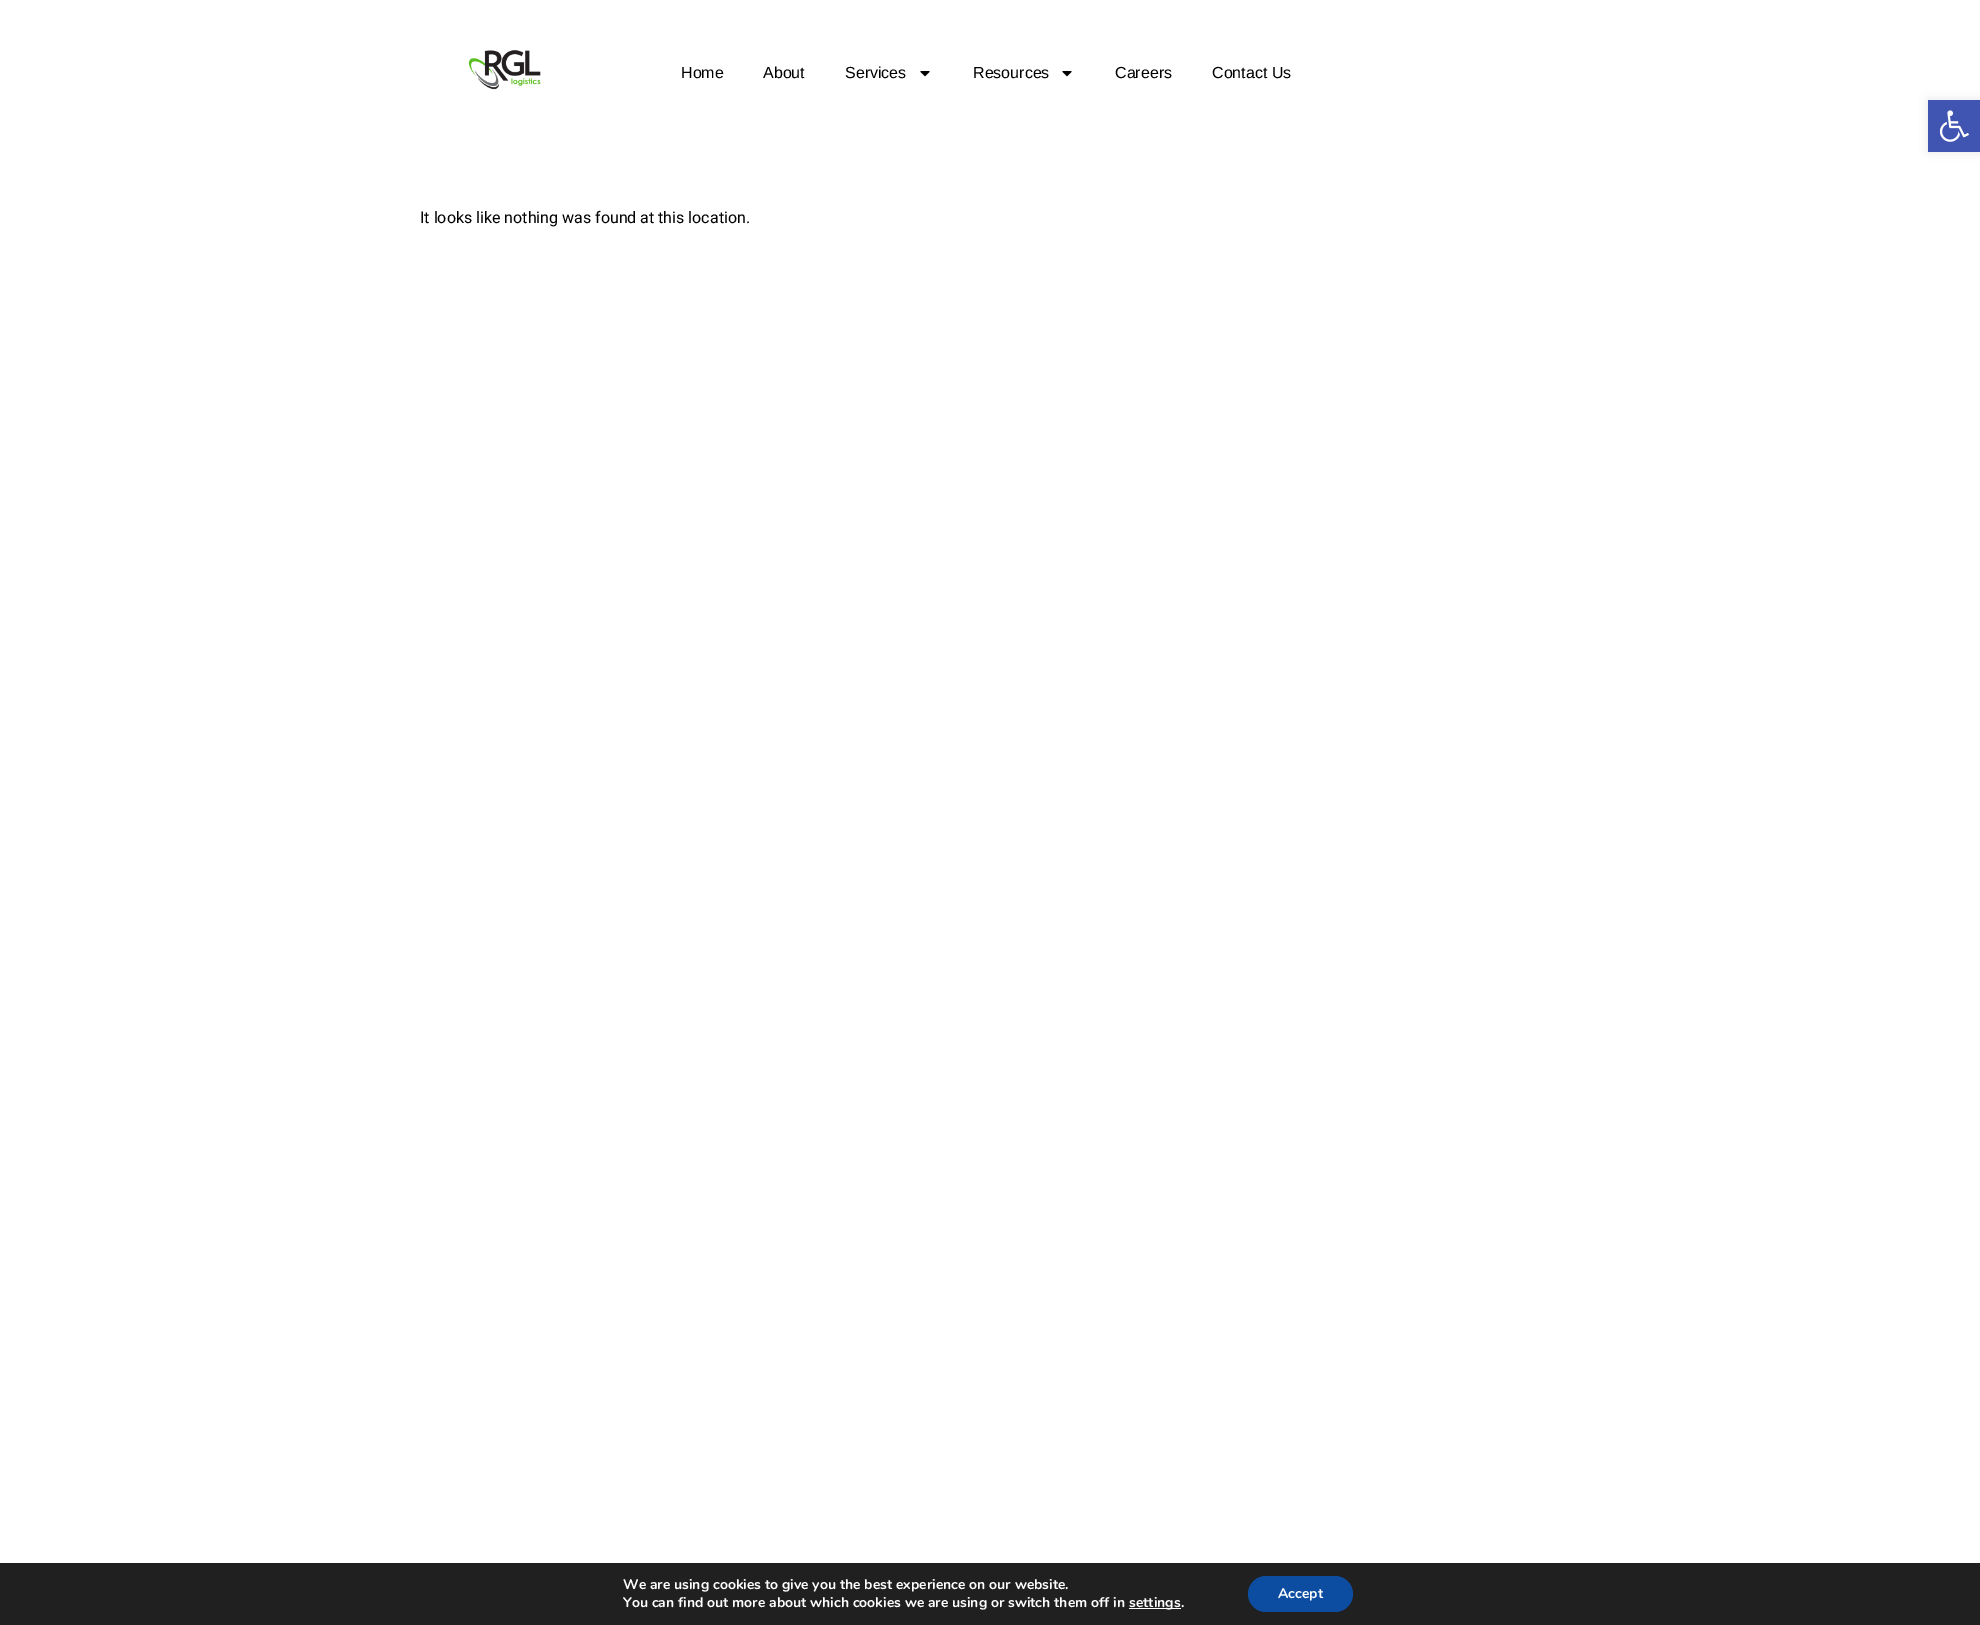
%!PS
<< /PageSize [1980 1625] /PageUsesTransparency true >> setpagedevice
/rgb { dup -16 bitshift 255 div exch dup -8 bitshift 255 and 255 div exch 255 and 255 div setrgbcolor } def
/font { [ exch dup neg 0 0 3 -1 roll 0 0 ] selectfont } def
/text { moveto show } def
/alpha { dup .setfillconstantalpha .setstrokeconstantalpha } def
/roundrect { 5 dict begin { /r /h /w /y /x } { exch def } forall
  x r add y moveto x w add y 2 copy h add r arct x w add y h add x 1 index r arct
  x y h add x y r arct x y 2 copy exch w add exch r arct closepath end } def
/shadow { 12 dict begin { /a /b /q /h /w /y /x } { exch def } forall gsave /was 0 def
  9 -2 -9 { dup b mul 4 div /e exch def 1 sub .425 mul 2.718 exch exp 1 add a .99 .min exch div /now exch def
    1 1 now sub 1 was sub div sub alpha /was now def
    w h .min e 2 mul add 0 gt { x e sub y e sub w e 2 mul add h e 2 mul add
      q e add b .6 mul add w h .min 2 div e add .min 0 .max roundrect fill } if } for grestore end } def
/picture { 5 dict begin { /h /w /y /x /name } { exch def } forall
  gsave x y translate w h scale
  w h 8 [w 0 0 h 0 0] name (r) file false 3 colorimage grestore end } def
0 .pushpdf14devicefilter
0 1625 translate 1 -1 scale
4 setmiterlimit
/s1 { /LiberationSans-Regular 16 font 16#000000 rgb } def
/s2 { /Roboto-Regular 16 font 16#000000 rgb } def
/s3 { /Nunito-Bold 14 font 16#FFFFFF rgb } def
16#FFFFFF rgb
0 0 1980 1625 rectfill
(pic1.raw) 468 50 73 40 picture
s1
(Home) 681 78 text
(About) 763 78 text
(Services) 845 78 text
(pic2.raw) 920 71 10 6 picture
(Resources) 973 78 text
(pic2.raw) 1062 71 10 6 picture
(Careers) 1115 78 text
(Contact Us) 1212 78 text
1928 100 52 52 0 5 0.1 shadow
16#4054B2 rgb
1928 100 52 52 rectfill
(pic3.raw) 1939 110 30 32 picture
s2
(It looks like nothing was found at this location.) 420 223 text
16#202020 rgb
0 1563 1980 62 rectfill
s3
(We are using cookies to give you the best experience on our website.) 623 1589 text
(You can find out more about which cookies we are using or switch them off in) 623 1607 text
1129 1608 52 1 rectfill
(settings.) 1129 1607 text
16#0C4DA2 rgb
1248 1576 105 36 18 roundrect fill
s3
(Accept) 1278 1598 text
.poppdf14devicefilter showpage
